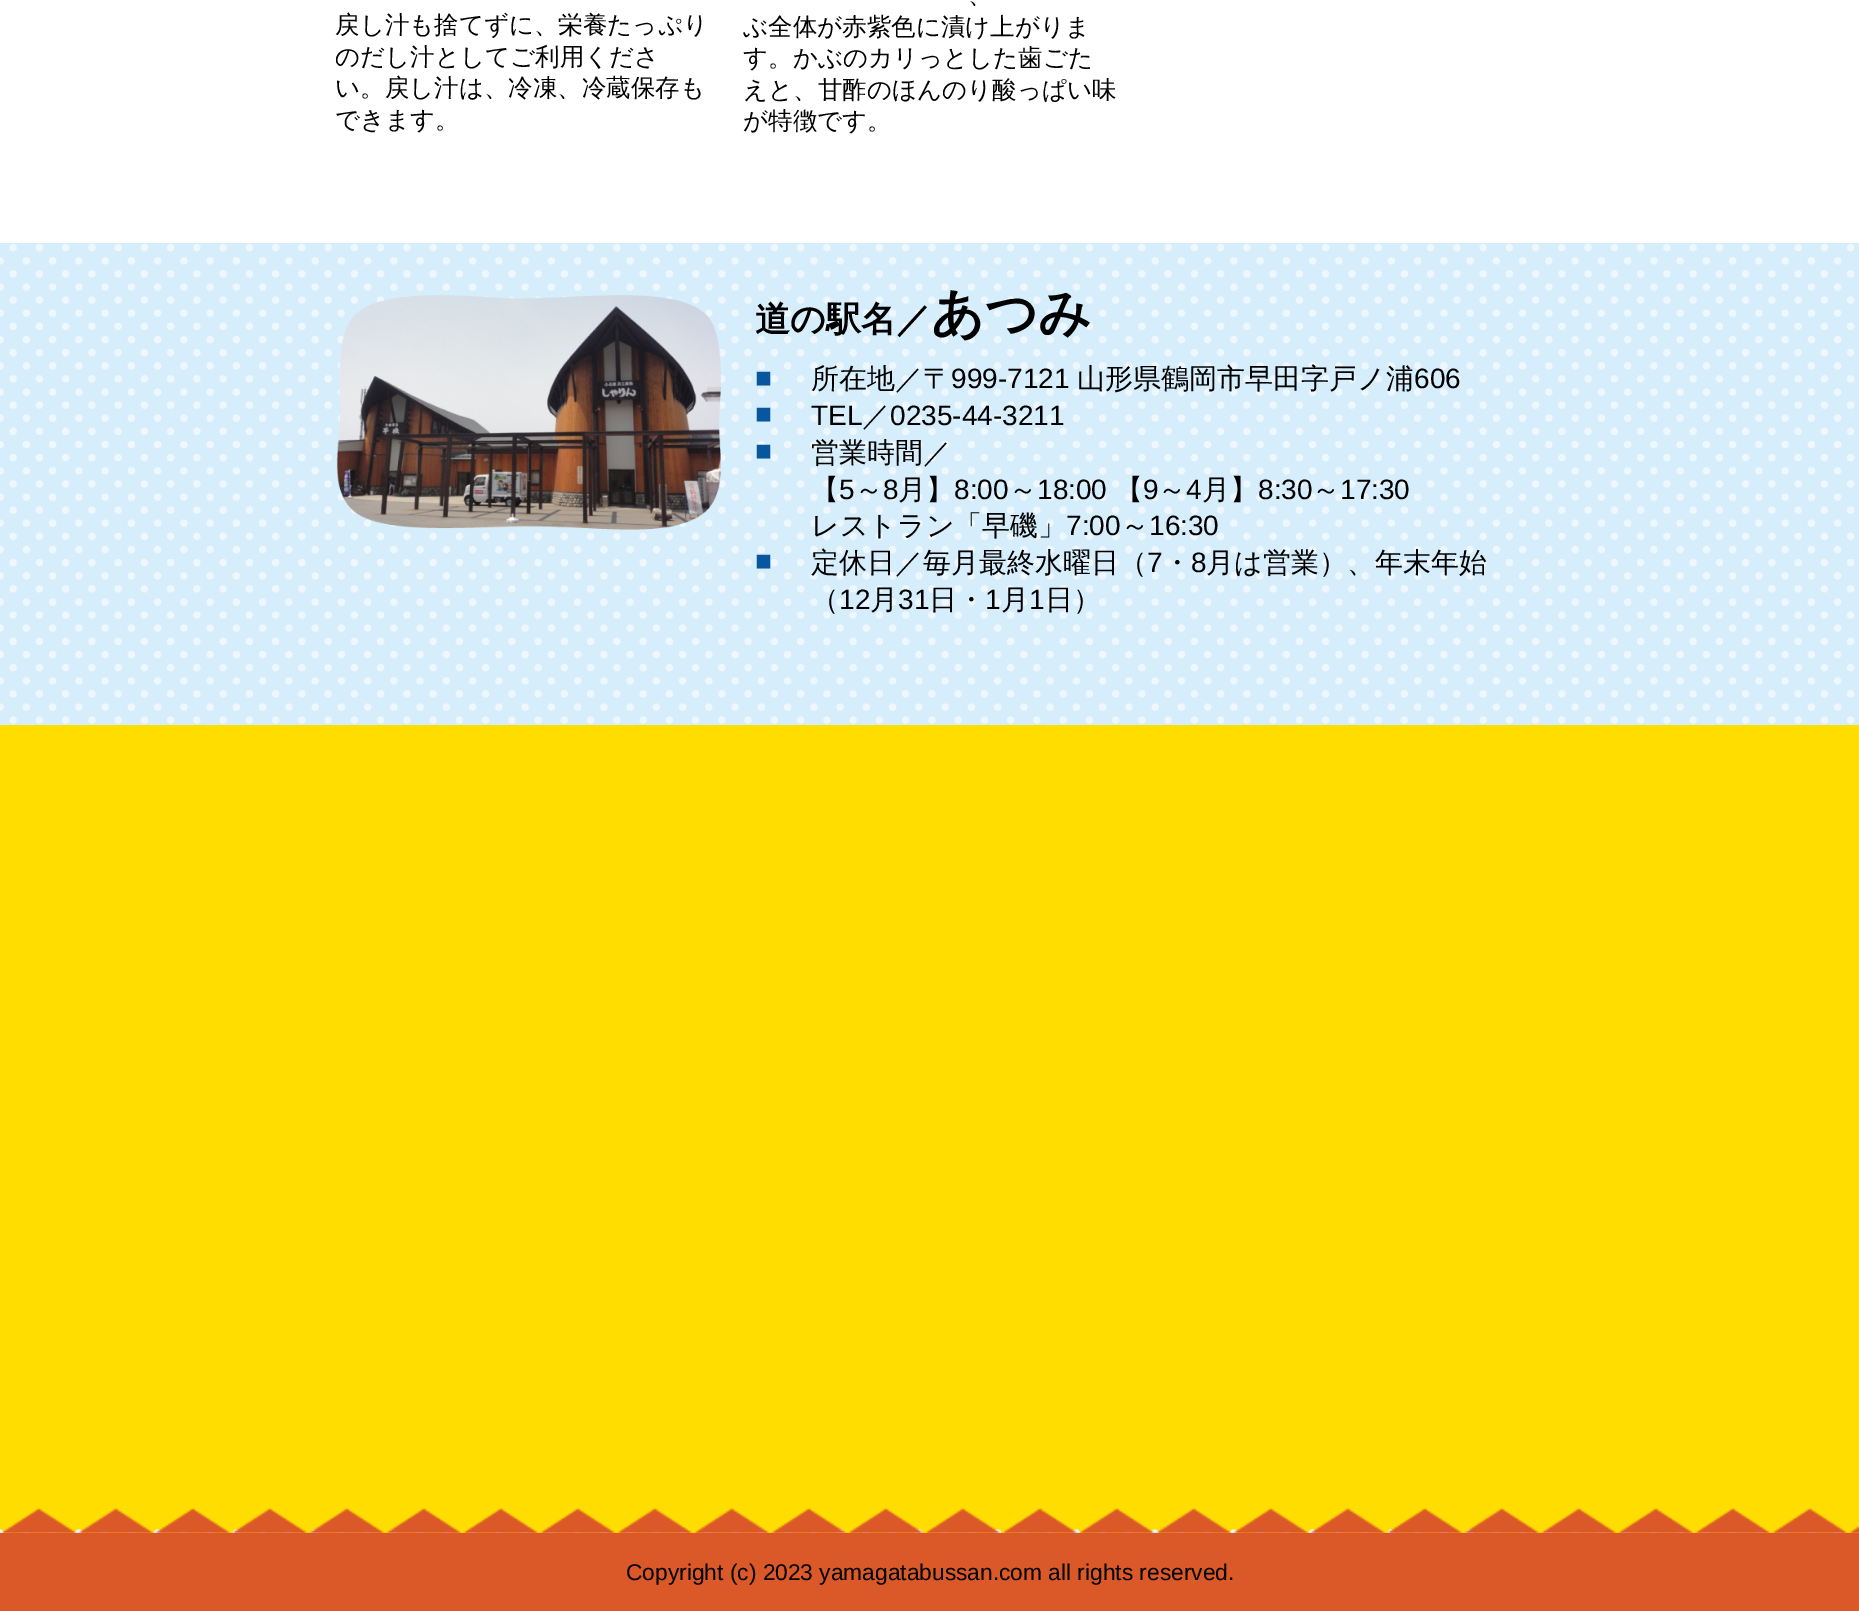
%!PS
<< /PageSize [1859 1611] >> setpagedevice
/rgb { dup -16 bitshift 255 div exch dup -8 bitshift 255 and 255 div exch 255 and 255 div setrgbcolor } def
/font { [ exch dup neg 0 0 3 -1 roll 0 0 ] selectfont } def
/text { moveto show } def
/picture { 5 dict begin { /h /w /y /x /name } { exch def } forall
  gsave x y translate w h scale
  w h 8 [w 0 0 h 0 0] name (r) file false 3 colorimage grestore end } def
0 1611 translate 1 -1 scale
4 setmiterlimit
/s1 { /WenQuanYiZenHei-Medium 24.5 font 16#000000 rgb } def
/s2 { /WenQuanYiZenHei-Bold 35 font 16#000000 rgb } def
/s3 { /WenQuanYiZenHei-Bold 52.5 font 16#000000 rgb } def
/s4 { /LiberationSans-Regular 28 font 16#07569E rgb } def
/s5 { /WenQuanYiZenHei-Medium 28 font 16#000000 rgb } def
/s6 { /LiberationSans-Regular 28 font 16#000000 rgb } def
/s7 { /LiberationSans-Regular 22.75 font 16#000000 rgb } def
16#FFDD00 rgb
0 0 1859 1611 rectfill
16#D6EEFB rgb
0 243 1859 482 rectfill
16#EDF7FD rgb
7.4 setlinewidth
1 setlinecap
[0 26.25] 0 setdash
0 260.8 moveto 1837.9 260.8 lineto stroke
0 287 moveto 1837.9 287 lineto stroke
0 313.2 moveto 1837.9 313.2 lineto stroke
0 339.5 moveto 1837.9 339.5 lineto stroke
0 365.8 moveto 1837.9 365.8 lineto stroke
0 392 moveto 1837.9 392 lineto stroke
0 418.2 moveto 1837.9 418.2 lineto stroke
0 444.5 moveto 1837.9 444.5 lineto stroke
0 470.8 moveto 1837.9 470.8 lineto stroke
0 497 moveto 1837.9 497 lineto stroke
0 523.2 moveto 1837.9 523.2 lineto stroke
0 549.5 moveto 1837.9 549.5 lineto stroke
0 575.8 moveto 1837.9 575.8 lineto stroke
0 602 moveto 1837.9 602 lineto stroke
0 628.2 moveto 1837.9 628.2 lineto stroke
0 654.5 moveto 1837.9 654.5 lineto stroke
0 680.8 moveto 1837.9 680.8 lineto stroke
0 707 moveto 1837.9 707 lineto stroke
13.1 247.6 moveto 1851 247.6 lineto stroke
13.1 273.9 moveto 1851 273.9 lineto stroke
13.1 300.1 moveto 1851 300.1 lineto stroke
13.1 326.4 moveto 1851 326.4 lineto stroke
13.1 352.6 moveto 1851 352.6 lineto stroke
13.1 378.9 moveto 1851 378.9 lineto stroke
13.1 405.1 moveto 1851 405.1 lineto stroke
13.1 431.4 moveto 1851 431.4 lineto stroke
13.1 457.6 moveto 1851 457.6 lineto stroke
13.1 483.9 moveto 1851 483.9 lineto stroke
13.1 510.1 moveto 1851 510.1 lineto stroke
13.1 536.4 moveto 1851 536.4 lineto stroke
13.1 562.6 moveto 1851 562.6 lineto stroke
13.1 588.9 moveto 1851 588.9 lineto stroke
13.1 615.1 moveto 1851 615.1 lineto stroke
13.1 641.4 moveto 1851 641.4 lineto stroke
13.1 667.6 moveto 1851 667.6 lineto stroke
13.1 693.9 moveto 1851 693.9 lineto stroke
13.1 720.1 moveto 1851 720.1 lineto stroke
16#FFFFFF rgb
0 0 1859 243 rectfill
s1
(戻し汁も捨てずに、栄養たっぷり) 335 33 text
(のだし汁としてご利用くださ) 335 65 text
(い。戻し汁は、冷凍、冷蔵保存も) 335 96 text
(できます。) 335 128 text
(、) 968 3 text
(ぶ全体が赤紫色に漬け上がりま) 743 35 text
(す。かぶのカリっとした歯ごた) 743 66 text
(えと、甘酢のほんのり酸っぱい味) 743 98 text
(が特徴です。) 743 129 text
(pic1.raw) 336 295 385 235 picture
s2
(道の駅名／) 755 331 text
s3
(あつみ) 931 331 text
s4
(■) 755 387 text
s5
(所在地／〒) 811 388 text
s6
(999-7121) 951 388 text
s5
(山形県鶴岡市早田字戸ノ浦) 1077 388 text
s6
(606) 1414 388 text
s4
(■) 755 423 text
s6
(TEL) 811 425 text
s5
(／) 862 425 text
s6
(0235-44-3211) 890 425 text
s4
(■) 755 460 text
s5
(営業時間／) 811 462 text
(【) 811 499 text
s6
(5) 839 499 text
s5
(～) 855 499 text
s6
(8) 883 499 text
s5
(月】) 898 499 text
s6
(8:00) 954 499 text
s5
(～) 1009 499 text
s6
(18:00) 1037 499 text
s5
(【) 1115 499 text
s6
(9) 1143 499 text
s5
(～) 1158 499 text
s6
(4) 1186 499 text
s5
(月】) 1202 499 text
s6
(8:30) 1258 499 text
s5
(～) 1312 499 text
s6
(17:30) 1340 499 text
s5
(レストラン「早磯」) 811 535 text
s6
(7:00) 1066 535 text
s5
(～) 1121 535 text
s6
(16:30) 1149 535 text
s4
(■) 755 570 text
s5
(定休日／毎月最終水曜日（) 811 572 text
s6
(7) 1147 572 text
s5
(・) 1163 572 text
s6
(8) 1191 572 text
s5
(月は営業）、年末年始) 1206 572 text
(（) 811 609 text
s6
(12) 839 609 text
s5
(月) 870 609 text
s6
(31) 898 609 text
s5
(日・) 929 609 text
s6
(1) 985 609 text
s5
(月) 1001 609 text
s6
(1) 1029 609 text
s5
(日）) 1045 609 text
16#EDF7FD rgb
0 1533 moveto 1837.9 1533 lineto stroke
16#DB5828 rgb
0 1533 1859 78 rectfill
(pic2.raw) 0 1508 1859 25 picture
s7
(Copyright \(c\) 2023 yamagatabussan.com all rights reserved.) 626 1580 text
showpage
